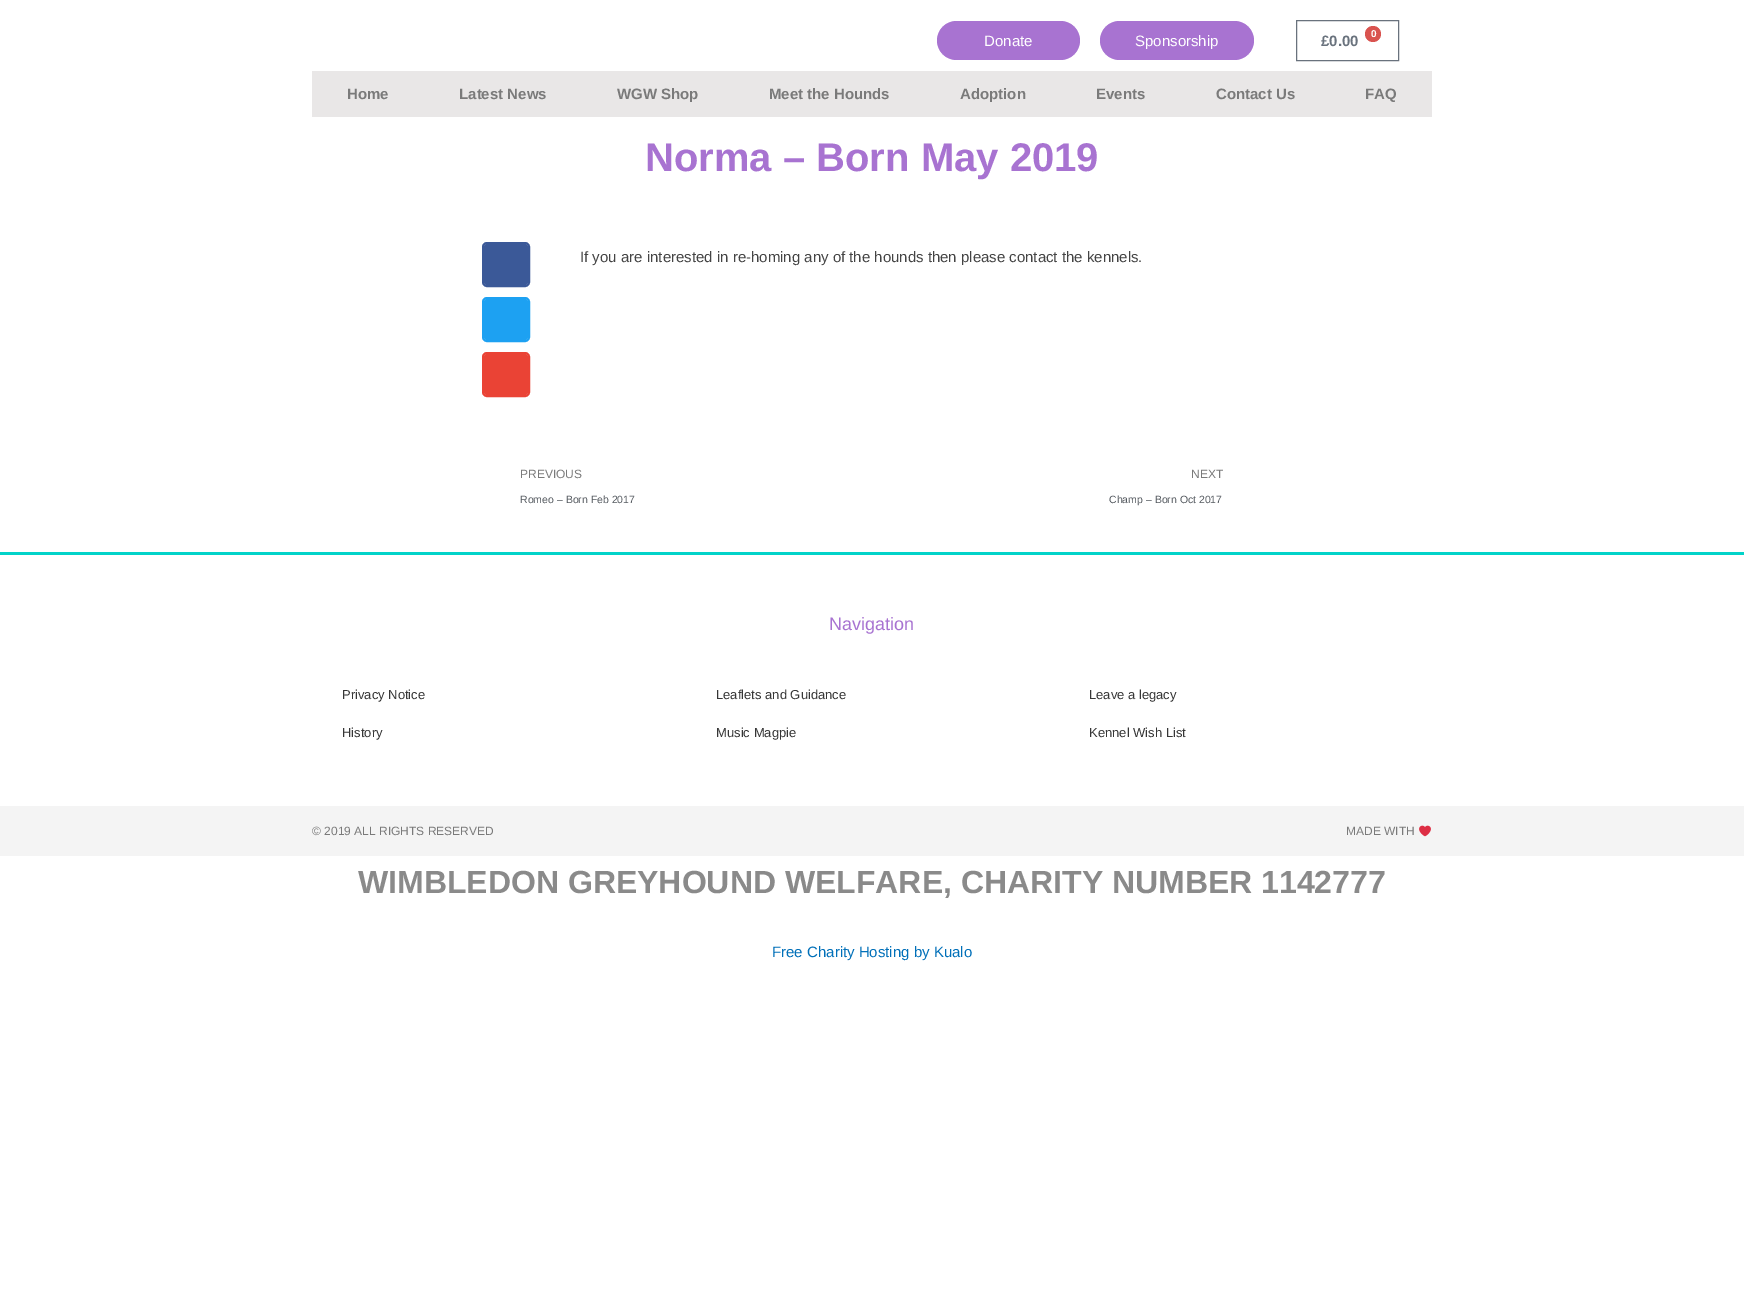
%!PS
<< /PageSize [1744 1311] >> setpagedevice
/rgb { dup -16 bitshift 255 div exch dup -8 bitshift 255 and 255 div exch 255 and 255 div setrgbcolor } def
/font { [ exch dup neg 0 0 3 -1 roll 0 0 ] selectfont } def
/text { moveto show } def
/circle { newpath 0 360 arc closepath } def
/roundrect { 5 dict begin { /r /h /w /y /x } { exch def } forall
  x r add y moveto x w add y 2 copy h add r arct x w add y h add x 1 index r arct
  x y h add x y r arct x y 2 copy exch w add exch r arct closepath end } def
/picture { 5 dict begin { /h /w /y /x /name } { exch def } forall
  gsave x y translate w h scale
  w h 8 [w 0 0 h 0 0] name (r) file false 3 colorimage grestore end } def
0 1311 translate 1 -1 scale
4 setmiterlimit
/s1 { /LiberationSans-Regular 15 font 16#FFFFFF rgb } def
/s2 { /LiberationSans-Bold 10 font 16#FFFFFF rgb } def
/s3 { /LiberationSans-Bold 15 font 16#69727D rgb } def
/s4 { /LiberationSans-Bold 15 font 16#7A7A7A rgb } def
/s5 { /LiberationSans-Bold 40 font 16#A873D1 rgb } def
/s6 { /LiberationSans-Regular 15 font 16#444444 rgb } def
/s7 { /LiberationSans-Regular 12 font 16#7A7A7A rgb } def
/s8 { /LiberationSans-Regular 10.5 font 16#54595F rgb } def
/s9 { /LiberationSans-Regular 18 font 16#A873D1 rgb } def
/s10 { /LiberationSans-Regular 13 font 16#363636 rgb } def
/s11 { /LiberationSans-Bold 32 font 16#8A8A8A rgb } def
/s12 { /LiberationSans-Regular 15 font 16#0170B9 rgb } def
16#FFFFFF rgb
0 0 1744 1311 rectfill
16#A873D1 rgb
937 21 143 39 19.5 roundrect fill
s1
(Donate) 984 46 text
16#A873D1 rgb
1100 21 154 39 19.5 roundrect fill
s1
(Sponsorship) 1135 46 text
16#69727D rgb
1296.5 20.5 102 40 rectstroke
16#D9534F rgb
1373 34 8 circle fill
s2
(0) 1371 37 text
s3
(£0.00) 1321 46 text
16#E9E7E7 rgb
312 71 1120 46 rectfill
s4
(Home) 347 99 text
(Latest News) 459 99 text
(WGW Shop) 617 99 text
(Meet the Hounds) 769 99 text
(Adoption) 960 99 text
(Events) 1096 99 text
(Contact Us) 1216 99 text
(FAQ) 1365 99 text
s5
(Norma – Born May 2019) 645 171 text
16#3B5998 rgb
2 setlinewidth
483 243 46 43 4 roundrect stroke
484 244 44 41 3 roundrect fill
16#1DA1F2 rgb
483 298 46 43 4 roundrect stroke
484 299 44 41 3 roundrect fill
16#EA4335 rgb
483 353 46 43 4 roundrect stroke
484 354 44 41 3 roundrect fill
s6
(If you are interested in re-homing any of the hounds then please contact the kennels.) 580 262 text
s7
(PREVIOUS) 520 478 text
s8
(Romeo – Born Feb 2017) 520 503 text
s7
(NEXT) 1191 478 text
s8
(Champ – Born Oct 2017) 1109 503 text
16#02D3C9 rgb
0 552 1744 3 rectfill
s9
(Navigation) 829 630 text
s10
(Privacy Notice) 342 699 text
(History) 342 737 text
(Leaflets and Guidance) 716 699 text
(Music Magpie) 716 737 text
(Leave a legacy) 1089 699 text
(Kennel Wish List) 1089 737 text
16#F4F4F4 rgb
0 806 1744 50 rectfill
s7
(© 2019 ALL RIGHTS RESERVED) 312 835 text
(MADE WITH) 1346 835 text
(pic1.raw) 1419 825 12 12 picture
s11
(WIMBLEDON GREYHOUND WELFARE, CHARITY NUMBER 1142777) 358 893 text
s12
(Free Charity Hosting by Kualo) 772 957 text
showpage
